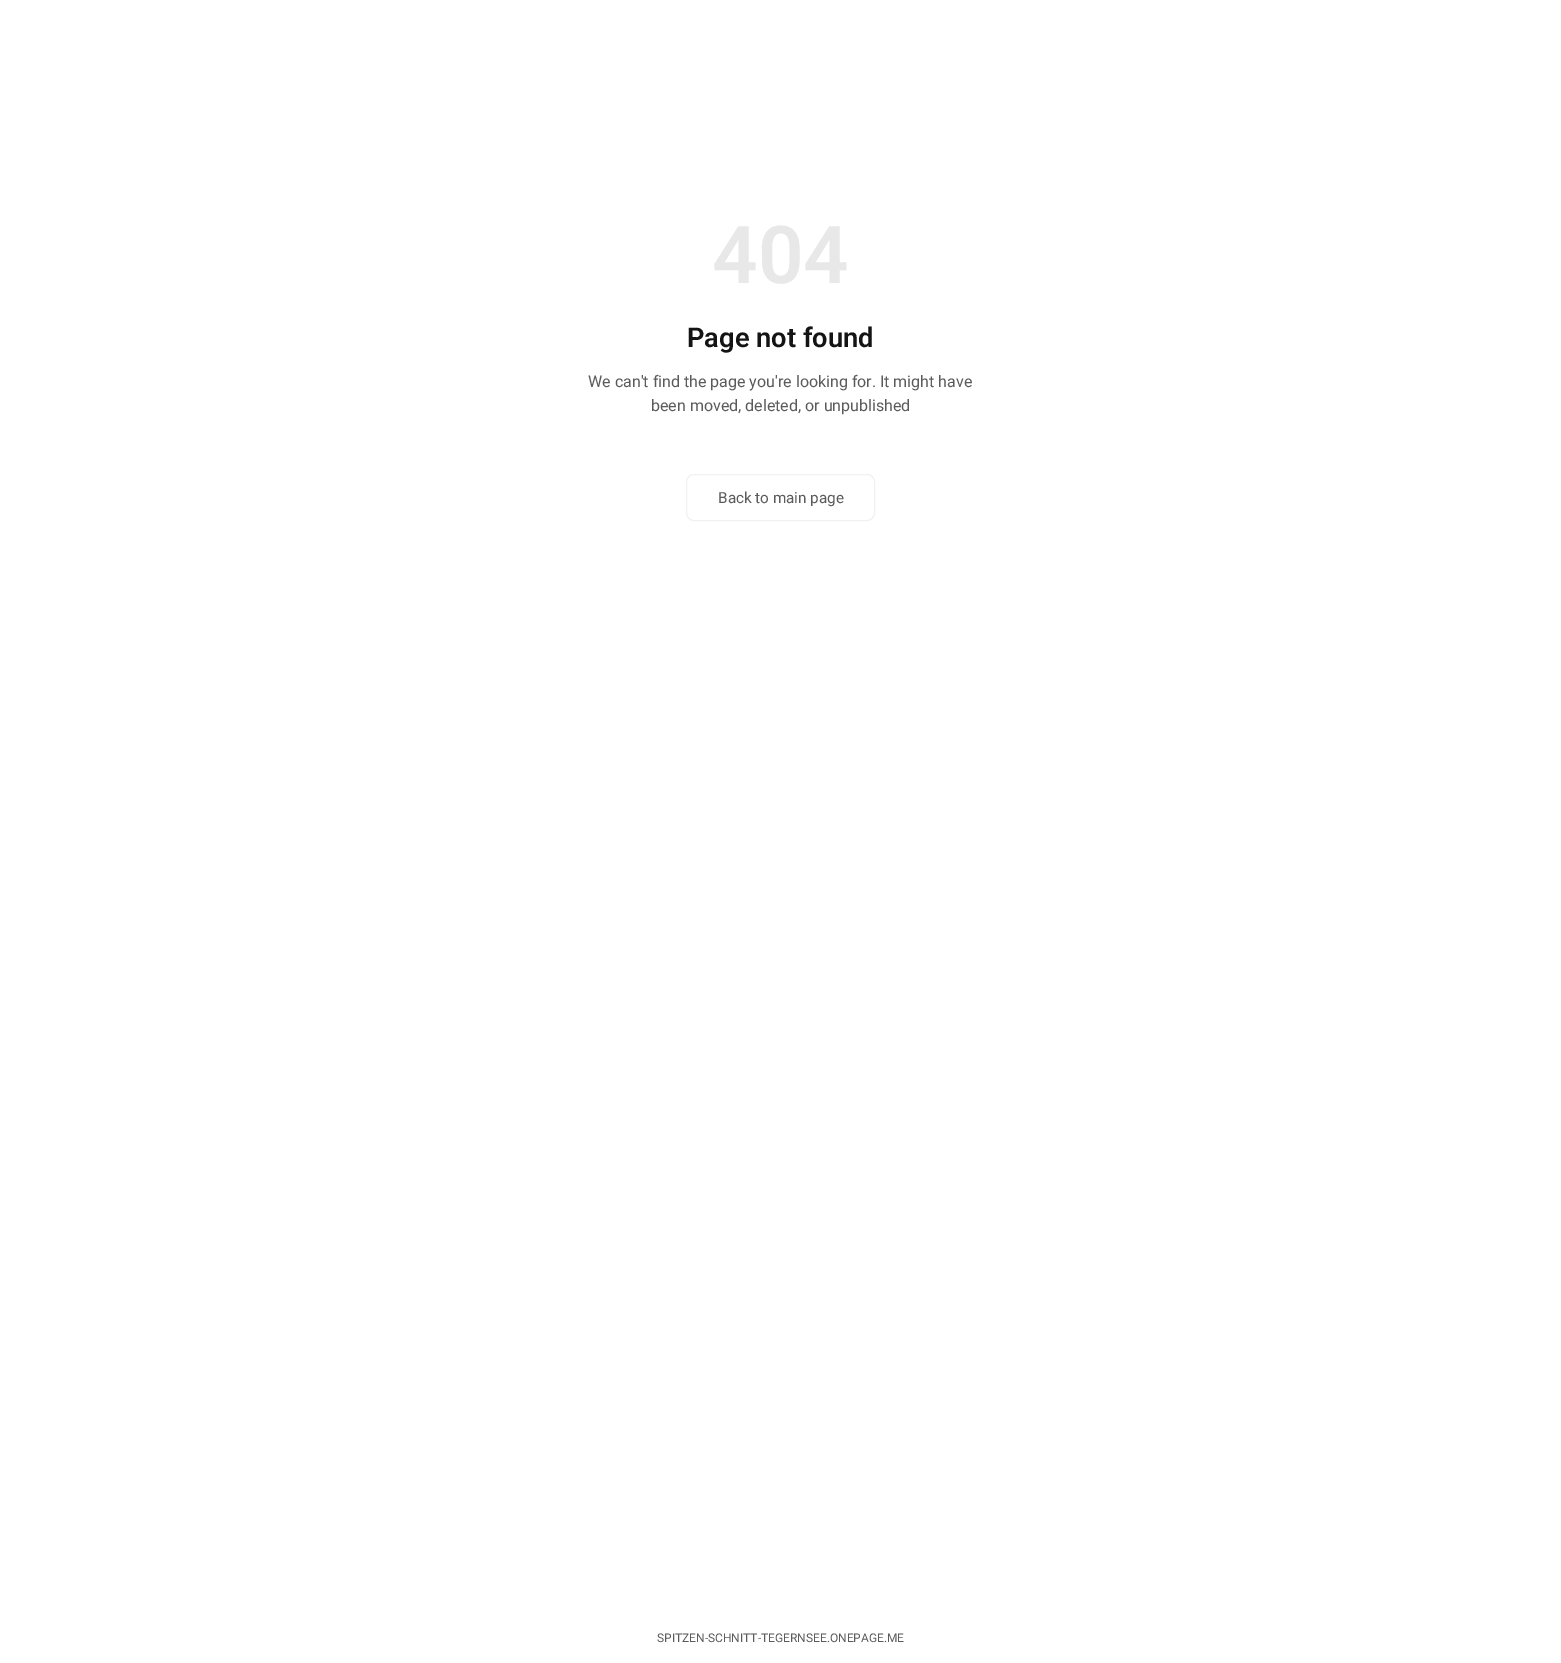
%!PS
<< /PageSize [1561 1663] >> setpagedevice
/rgb { dup -16 bitshift 255 div exch dup -8 bitshift 255 and 255 div exch 255 and 255 div setrgbcolor } def
/font { [ exch dup neg 0 0 3 -1 roll 0 0 ] selectfont } def
/text { moveto show } def
/roundrect { 5 dict begin { /r /h /w /y /x } { exch def } forall
  x r add y moveto x w add y 2 copy h add r arct x w add y h add x 1 index r arct
  x y h add x y r arct x y 2 copy exch w add exch r arct closepath end } def
0 1663 translate 1 -1 scale
4 setmiterlimit
/s1 { /Roboto-SemiBold 80 font 16#E8E8E8 rgb } def
/s2 { /Roboto-SemiBold 27.25 font 16#141414 rgb } def
/s3 { /Roboto-Regular 16 font 16#5B5B5B rgb } def
/s4 { /Roboto-Regular 15.25 font 16#5B5B5B rgb } def
/s5 { /Roboto-Regular 12 font 16#5B5B5B rgb } def
16#FFFFFF rgb
0 0 1561 1663 rectfill
s1
(404) 712 283 text
s2
(Page not found) 687 347 text
s3
(We can't find the page you're looking for. It might have) 588 387 text
(been moved, deleted, or unpublished) 651 411 text
16#F1F1F1 rgb
686.5 474.5 188 46 7.5 roundrect stroke
s4
(Back to main page) 718 503 text
s5
(SPITZEN-SCHNITT-TEGERNSEE.ONEPAGE.ME) 657 1642 text
showpage
